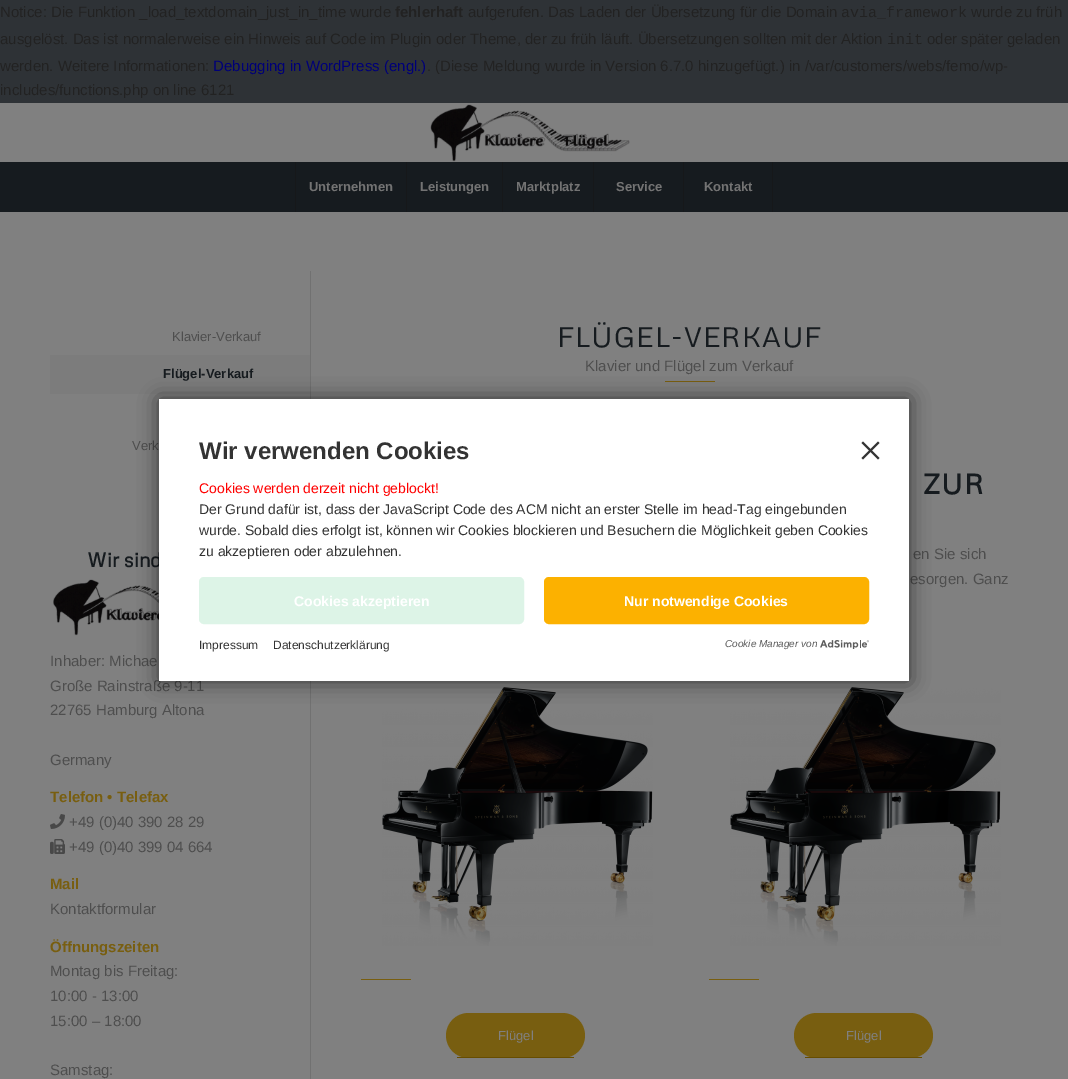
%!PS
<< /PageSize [1068 1079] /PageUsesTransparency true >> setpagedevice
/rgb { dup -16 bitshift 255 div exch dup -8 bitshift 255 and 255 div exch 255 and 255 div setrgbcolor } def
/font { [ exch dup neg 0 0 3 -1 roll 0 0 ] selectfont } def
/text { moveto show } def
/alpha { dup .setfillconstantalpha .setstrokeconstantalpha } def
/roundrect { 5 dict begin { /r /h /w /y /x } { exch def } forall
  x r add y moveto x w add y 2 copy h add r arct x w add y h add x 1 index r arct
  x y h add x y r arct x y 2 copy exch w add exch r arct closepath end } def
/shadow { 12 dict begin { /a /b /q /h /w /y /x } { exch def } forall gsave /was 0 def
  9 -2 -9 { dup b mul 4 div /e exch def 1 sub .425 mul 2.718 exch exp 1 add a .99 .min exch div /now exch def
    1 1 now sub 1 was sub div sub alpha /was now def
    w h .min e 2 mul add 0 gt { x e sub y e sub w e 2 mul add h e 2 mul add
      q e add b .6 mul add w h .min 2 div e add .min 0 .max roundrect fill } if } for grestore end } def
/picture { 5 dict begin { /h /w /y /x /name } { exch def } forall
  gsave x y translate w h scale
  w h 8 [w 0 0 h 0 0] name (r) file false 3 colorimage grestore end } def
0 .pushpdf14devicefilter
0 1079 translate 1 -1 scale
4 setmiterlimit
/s1 { /LiberationSans-Regular 15 font 16#222222 rgb } def
/s2 { /LiberationSans-Bold 15 font 16#222222 rgb } def
/s3 { /LiberationMono-Regular 15 font 16#222222 rgb } def
/s4 { /LiberationSans-Regular 15 font 16#000077 rgb } def
/s5 { /LiberationSans-Bold 13 font 16#737373 rgb } def
/s6 { /LiberationSans-Regular 13 font 16#4E4E4E rgb } def
/s7 { /LiberationSans-Bold 13 font 16#161B1F rgb } def
/s8 { /Metrophobic-Bold 20 font 16#161B1F rgb } def
/s9 { /LiberationSans-Regular 15 font 16#4E4E4E rgb } def
/s10 { /LiberationSans-Bold 15 font 16#785E10 rgb } def
/s11 { /LiberationSans-Regular 13 font 16#808080 rgb } def
/s12 { /LiberationSans-Bold 24 font 16#333333 rgb } def
/s13 { /LiberationSans-Regular 14 font 16#FF0000 rgb } def
/s14 { /LiberationSans-Regular 14 font 16#333333 rgb } def
/s15 { /LiberationSans-Bold 14 font 16#FFFFFF rgb } def
/s16 { /LiberationSans-Regular 12 font 16#333333 rgb } def
/s17 { /LiberationSans-Italic 10 font 16#5C5C5C rgb } def
16#2E3236 rgb
0 0 1068 1079 rectfill
s1
(Notice: Die Funktion _load_textdomain_just_in_time wurde) 0 17 text
s2
(fehlerhaft) 395 17 text
s1
(aufgerufen. Das Laden der Übersetzung für die Domain) 468 17 text
s3
(avia_framework) 841 17 text
s1
(wurde zu früh) 971 17 text
(ausgelöst. Das ist normalerweise ein Hinweis auf Code im Plugin oder Theme, der zu früh läuft. Übersetzungen sollten mit der Aktion) 0 44 text
s3
(init) 887 44 text
s1
(oder später geladen) 927 44 text
(werden. Weitere Informationen:) 0 71 text
s4
(Debugging in WordPress \(engl.\)) 213 71 text
s1
(. \(Diese Meldung wurde in Version 6.7.0 hinzugefügt.\) in /var/customers/webs/femo/wp-) 427 71 text
(includes/functions.php on line 6121) 0 95 text
16#808080 rgb
0 103 1068 976 rectfill
(pic1.raw) 430 104 200 58 picture
16#161B1F rgb
0 162 1068 50 rectfill
16#16181A rgb
295 162 1 50 rectfill
s5
(Unternehmen) 309 191 text
16#16181A rgb
406 162 1 50 rectfill
s5
(Leistungen) 420 191 text
16#16181A rgb
502 162 1 50 rectfill
s5
(Marktplatz) 516 191 text
16#16181A rgb
593 162 1 50 rectfill
s5
(Service) 616 191 text
16#16181A rgb
772 162 1 50 rectfill
683 162 1 50 rectfill
s5
(Kontakt) 704 191 text
s6
(Klavier-Verkauf) 172 341 text
16#7C7C7C rgb
50 355 260 39 rectfill
s7
(Flügel-Verkauf) 163 378 text
s6
(Verk) 132 450 text
s8
(Wir sind) 87 567 text
(pic2.raw) 53 579 106 57 picture
s9
(Inhaber: Michae) 50 666 text
(Große Rainstraße 9-11) 50 691 text
(22765 Hamburg Altona) 50 715 text
(Germany) 50 765 text
s10
(Telefon • Telefax) 50 802 text
(pic3.raw) 50 814 15 15 picture
s9
(+49 \(0\)40 390 28 29) 69 827 text
(pic4.raw) 50 839 15 15 picture
(+49 \(0\)40 399 04 664) 69 852 text
s10
(Mail) 50 889 text
s9
(Kontaktformular) 50 914 text
s10
(Öffnungszeiten) 50 952 text
s9
(Montag bis Freitag:) 50 976 text
(10:00 - 13:00) 50 1001 text
(15:00 – 18:00) 50 1026 text
(Samstag:) 50 1075 text
16#717171 rgb
310 271 1 808 rectfill
/Metrophobic-Regular 28 font
16#161B1F rgb
557 347 moveto 1 0 (FLÜGEL-VERKAUF) ashow
s9
(Klavier und Flügel zum Verkauf) 585 371 text
16#785E10 rgb
665 381 50 1 rectfill
/Metrophobic-Bold 28 font
16#161B1F rgb
923 494 moveto 1 0 (ZUR) ashow
s9
(en Sie sich) 913 559 text
(esorgen. Ganz) 910 584 text
(pic5.raw) 382 687 271 259 picture
16#785E10 rgb
361 979 50 1 rectfill
446 1013 139 45 22.5 roundrect fill
16#674D00 rgb
457 1057 117 1 rectfill
s11
(Flügel) 498 1040 text
(pic5.raw) 730 687 271 259 picture
16#785E10 rgb
709 979 50 1 rectfill
794 1013 139 45 22.5 roundrect fill
16#674D00 rgb
805 1057 117 1 rectfill
s11
(Flügel) 846 1040 text
16#000000 rgb
159 399 750 282 0 10 0.6 shadow
16#FFFFFF rgb
159 399 750 282 rectfill
s12
(Wir verwenden Cookies) 199 459 text
s13
(Cookies werden derzeit nicht geblockt!) 199 493 text
s14
(Der Grund dafür ist, dass der JavaScript Code des ACM nicht an erster Stelle im head-Tag eingebunden) 199 514 text
(wurde. Sobald dies erfolgt ist, können wir Cookies blockieren und Besuchern die Möglichkeit geben Cookies) 199 535 text
(zu akzeptieren oder abzulehnen.) 199 556 text
863 441.5 moveto 879.5 458 lineto 878 459.5 lineto 861.5 443 lineto closepath fill
861.5 458 moveto 878 441.5 lineto 879.5 443 lineto 863 459.5 lineto closepath fill
16#DDF4E7 rgb
200 578 323 45 4 roundrect gsave fill grestore
2 setlinewidth
stroke
s15
(Cookies akzeptieren) 294 606 text
16#FCB100 rgb
545 578 323 45 4 roundrect gsave fill grestore
stroke
s15
(Nur notwendige Cookies) 624 606 text
s16
(Impressum) 199 649 text
(Datenschutzerklärung) 273 649 text
s17
(Cookie Manager von) 725 647 text
(pic6.raw) 820 640 49 9 picture
.poppdf14devicefilter showpage
